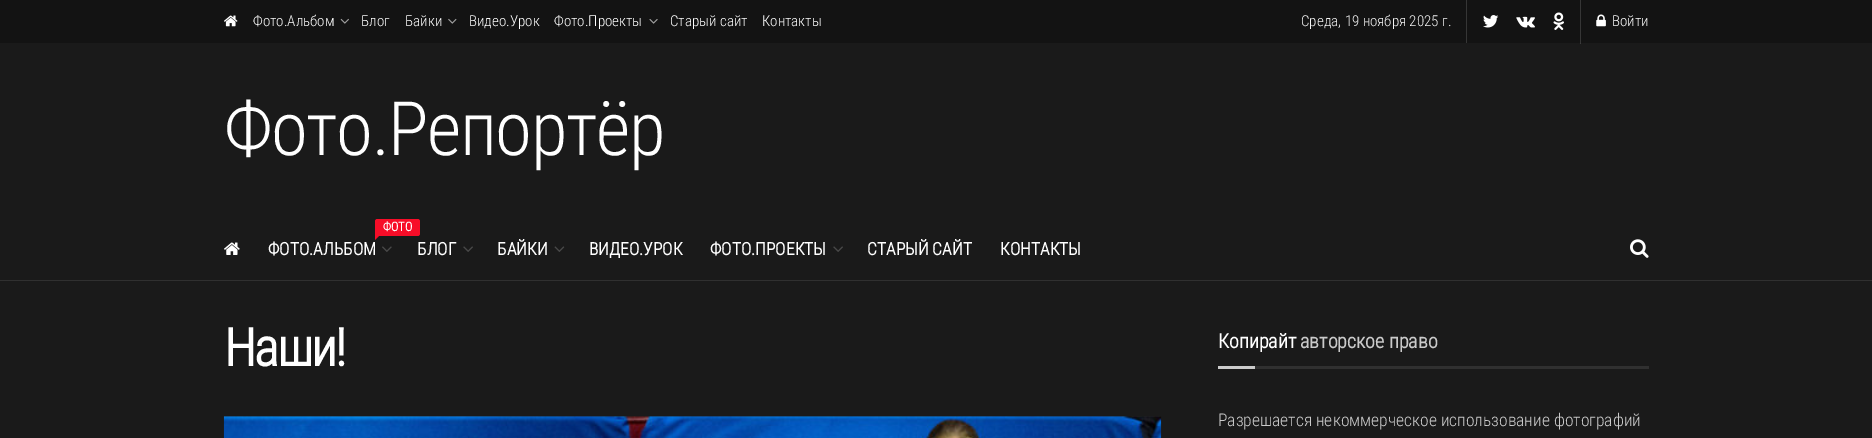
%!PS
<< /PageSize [1872 438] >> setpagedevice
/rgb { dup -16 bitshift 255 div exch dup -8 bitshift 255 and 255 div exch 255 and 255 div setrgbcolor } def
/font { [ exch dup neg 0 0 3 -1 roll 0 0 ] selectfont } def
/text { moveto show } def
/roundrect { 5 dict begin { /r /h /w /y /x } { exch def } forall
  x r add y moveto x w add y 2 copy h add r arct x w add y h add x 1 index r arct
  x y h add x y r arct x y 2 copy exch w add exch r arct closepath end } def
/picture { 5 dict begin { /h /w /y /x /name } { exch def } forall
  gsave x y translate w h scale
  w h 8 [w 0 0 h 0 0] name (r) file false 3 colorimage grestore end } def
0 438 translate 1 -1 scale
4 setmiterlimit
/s1 { /RobotoCondensed-Light 15 font 16#FFFFFF rgb } def
/s2 { /RobotoCondensed-Light 15 font 16#F5F5F5 rgb } def
/s3 { /RobotoCondensed-Bold 12.5 font 16#FFFFFF rgb } def
/s4 { /RobotoCondensed-Bold 17.5 font 16#FFFFFF rgb } def
/s5 { /RobotoCondensed-Bold 20 font 16#FFFFFF rgb } def
/s6 { /RobotoCondensed-Bold 20 font 16#CACACA rgb } def
/s7 { /RobotoCondensed-Light 17.5 font 16#CACACA rgb } def
16#1A1A1A rgb
0 0 1872 438 rectfill
16#3C3C3C rgb
1580 43 1 1 rectfill
16#131313 rgb
0 0 1872 43 rectfill
16#363636 rgb
1580 0 1 43 rectfill
(pic1.raw) 224 15 14 12 picture
s1
(Фото.Альбом) 253 26 text
(pic2.raw) 340 18 9 6 picture
(Блог) 361 26 text
(Байки) 405 26 text
(pic3.raw) 448 18 9 6 picture
(Видео.Урок) 469 26 text
(Фото.Проекты) 554 26 text
(pic4.raw) 649 19 9 5 picture
(Старый сайт) 670 26 text
(Контакты) 762 26 text
16#363636 rgb
1466 0 1 43 rectfill
s2
(Среда, 19 ноября 2025 г.) 1301 26 text
(pic5.raw) 1483 15 16 13 picture
(pic6.raw) 1516 16 19 12 picture
(pic7.raw) 1553 12 11 18 picture
(pic8.raw) 1596 14 10 13 picture
s1
(Войти) 1612 26 text
/RobotoCondensed-Light 75 font
224 155 moveto -1.5 0 (Фото.Репортёр) ashow
16#303030 rgb
0 280 1872 1 rectfill
(pic9.raw) 224 242 16 13 picture
16#F70D28 rgb
375 219 45 17 2.5 roundrect fill
s3
(ФОТО) 383 231 text
16#F70D28 rgb
375 240 moveto 375 232.5 lineto 379 236 lineto closepath fill
s4
(ФОТО.АЛЬБОМ) 268 255 text
(pic10.raw) 382 246 10 6 picture
(БЛОГ) 417 255 text
(pic11.raw) 463 246 10 6 picture
(БАЙКИ) 497 255 text
(pic12.raw) 554 246 11 6 picture
(ВИДЕО.УРОК) 589 255 text
(ФОТО.ПРОЕКТЫ) 710 255 text
(pic11.raw) 833 246 10 6 picture
(СТАРЫЙ САЙТ) 867 255 text
(КОНТАКТЫ) 1000 255 text
(pic13.raw) 1630 239 19 19 picture
/RobotoCondensed-Bold 52.5 font
224 366 moveto -2 0 (Наши!) ashow
16#282828 rgb
224 416 937 1 rectfill
(pic15.raw) 299 416 239 1 picture
(pic14.raw) 223 416 939 22 picture
16#303030 rgb
1255 366 394 3 rectfill
s5
(Копирайт) 1218 348 text
s6
(авторское право) 1300 348 text
16#CCCCCC rgb
1218 366 37 3 rectfill
s7
(Разрешается некоммерческое использование фотографий) 1218 426 text
showpage
